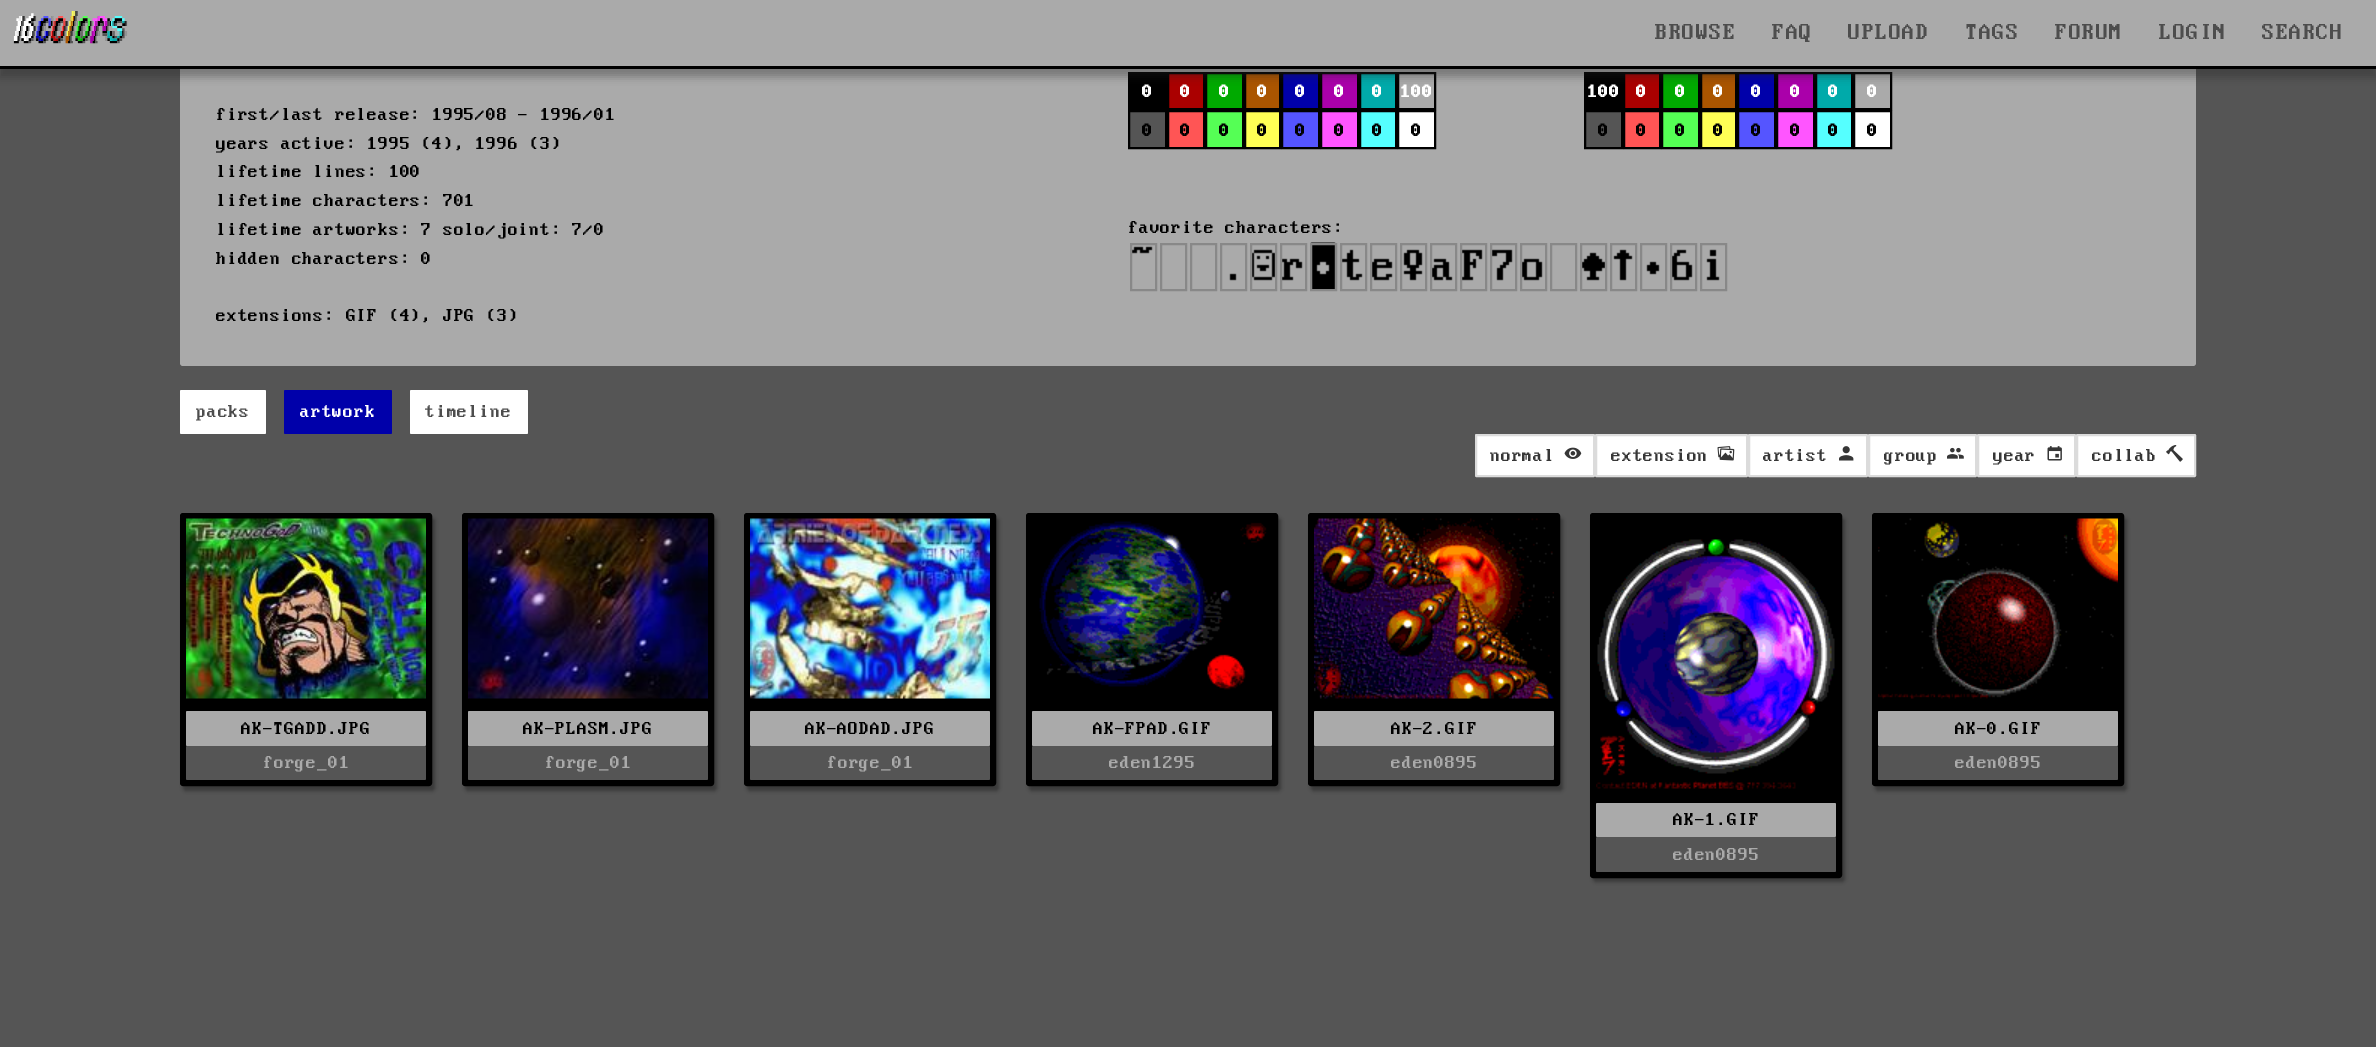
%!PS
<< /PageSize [2376 1047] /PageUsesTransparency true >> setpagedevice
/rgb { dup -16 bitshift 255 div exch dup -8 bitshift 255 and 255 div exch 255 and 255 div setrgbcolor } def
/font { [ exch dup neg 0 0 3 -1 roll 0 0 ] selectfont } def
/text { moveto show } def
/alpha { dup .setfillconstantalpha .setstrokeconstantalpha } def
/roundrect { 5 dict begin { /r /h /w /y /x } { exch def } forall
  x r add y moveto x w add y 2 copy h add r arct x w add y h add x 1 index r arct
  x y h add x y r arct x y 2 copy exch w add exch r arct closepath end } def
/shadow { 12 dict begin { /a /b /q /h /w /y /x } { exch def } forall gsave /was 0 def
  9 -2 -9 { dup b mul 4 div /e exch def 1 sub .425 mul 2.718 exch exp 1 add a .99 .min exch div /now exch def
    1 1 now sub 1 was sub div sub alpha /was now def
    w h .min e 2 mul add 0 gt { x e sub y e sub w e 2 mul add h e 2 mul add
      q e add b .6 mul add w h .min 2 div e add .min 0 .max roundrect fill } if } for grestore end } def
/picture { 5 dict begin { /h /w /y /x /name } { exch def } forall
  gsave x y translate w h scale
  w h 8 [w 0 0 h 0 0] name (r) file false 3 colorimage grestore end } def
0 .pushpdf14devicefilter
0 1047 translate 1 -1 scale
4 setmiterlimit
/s1 { /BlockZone-Regular 24 font 16#4D4D4D rgb } def
/s2 { /BlockZone-Regular 19.2 font 16#000000 rgb } def
/s3 { /BlockZone-Bold 19.2 font 16#FFFFFF rgb } def
/s4 { /BlockZone-Bold 19.2 font 16#000000 rgb } def
/s5 { /BlockZone-Regular 19.2 font 16#4D4D4D rgb } def
/s6 { /BlockZone-Regular 19.2 font 16#FFFFFF rgb } def
/s7 { /BlockZone-Regular 19.2 font 16#363636 rgb } def
/s8 { /BlockZone-Regular 19.2 font 16#AAAAAA rgb } def
16#555555 rgb
0 0 2376 1047 rectfill
16#AAAAAA rgb
180 -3 2016 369 3 roundrect fill
16#000000 rgb
1128 72 39 38 rectfill
16#AA0000 rgb
1168 73 moveto 1204 73 lineto 1204 109 lineto 1168 109 lineto closepath gsave fill grestore
16#000000 rgb
2 setlinewidth
stroke
16#00AA00 rgb
1206 73 moveto 1243 73 lineto 1243 109 lineto 1206 109 lineto closepath gsave fill grestore
16#000000 rgb
stroke
16#AA5500 rgb
1245 73 moveto 1280 73 lineto 1280 109 lineto 1245 109 lineto closepath gsave fill grestore
16#000000 rgb
stroke
16#0000AA rgb
1282 73 moveto 1319 73 lineto 1319 109 lineto 1282 109 lineto closepath gsave fill grestore
16#000000 rgb
stroke
16#AA00AA rgb
1321 73 moveto 1358 73 lineto 1358 109 lineto 1321 109 lineto closepath gsave fill grestore
16#000000 rgb
stroke
16#00AAAA rgb
1360 73 moveto 1396 73 lineto 1396 109 lineto 1360 109 lineto closepath gsave fill grestore
16#000000 rgb
stroke
1398 73 37 36 rectstroke
1584 72 39 38 rectfill
16#AA0000 rgb
1624 73 moveto 1660 73 lineto 1660 109 lineto 1624 109 lineto closepath gsave fill grestore
16#000000 rgb
stroke
16#00AA00 rgb
1662 73 moveto 1699 73 lineto 1699 109 lineto 1662 109 lineto closepath gsave fill grestore
16#000000 rgb
stroke
16#AA5500 rgb
1701 73 moveto 1736 73 lineto 1736 109 lineto 1701 109 lineto closepath gsave fill grestore
16#000000 rgb
stroke
16#0000AA rgb
1738 73 moveto 1775 73 lineto 1775 109 lineto 1738 109 lineto closepath gsave fill grestore
16#000000 rgb
stroke
16#AA00AA rgb
1777 73 moveto 1814 73 lineto 1814 109 lineto 1777 109 lineto closepath gsave fill grestore
16#000000 rgb
stroke
16#00AAAA rgb
1816 73 moveto 1852 73 lineto 1852 109 lineto 1816 109 lineto closepath gsave fill grestore
16#000000 rgb
stroke
1854 73 37 36 rectstroke
16#222222 rgb
0 8 2376 69 0 4 0.35 shadow
16#AAAAAA rgb
0 0 2376 66 rectfill
16#000000 rgb
0 66 2376 3 rectfill
(pic1.raw) 13 11 115 33 picture
s1
(BROWSE) 1655 39 text
(FAQ) 1772 39 text
(UPLOAD) 1848 39 text
(TAGS) 1965 39 text
(FORUM) 2055 39 text
(LOGIN) 2159 39 text
(SEARCH) 2262 39 text
s2
(first/last release: 1995/08 - 1996/01) 216 120 text
(years active: 1995 \(4\), 1996 \(3\)) 216 149 text
(lifetime lines: 100) 216 177 text
(lifetime characters: 701) 216 206 text
(lifetime artworks: 7 solo/joint: 7/0) 216 235 text
(hidden characters: 0) 216 264 text
(extensions: GIF \(4\), JPG \(3\)) 216 321 text
s3
(0) 1142 97 text
(0) 1180 97 text
(0) 1219 97 text
(0) 1257 97 text
(0) 1295 97 text
(0) 1334 97 text
(0) 1372 97 text
(100) 1400 97 text
16#555555 rgb
1129 111 moveto 1166 111 lineto 1166 148 lineto 1129 148 lineto closepath gsave fill grestore
16#000000 rgb
stroke
(0) 1142 136 text
16#FF5555 rgb
1168 111 moveto 1204 111 lineto 1204 148 lineto 1168 148 lineto closepath gsave fill grestore
16#000000 rgb
stroke
(0) 1180 136 text
16#55FF55 rgb
1206 111 moveto 1243 111 lineto 1243 148 lineto 1206 148 lineto closepath gsave fill grestore
16#000000 rgb
stroke
(0) 1219 136 text
16#FFFF55 rgb
1245 111 moveto 1280 111 lineto 1280 148 lineto 1245 148 lineto closepath gsave fill grestore
16#000000 rgb
stroke
(0) 1257 136 text
16#5555FF rgb
1282 111 moveto 1319 111 lineto 1319 148 lineto 1282 148 lineto closepath gsave fill grestore
16#000000 rgb
stroke
(0) 1295 136 text
16#FF55FF rgb
1321 111 moveto 1358 111 lineto 1358 148 lineto 1321 148 lineto closepath gsave fill grestore
16#000000 rgb
stroke
(0) 1334 136 text
16#55FFFF rgb
1360 111 moveto 1396 111 lineto 1396 148 lineto 1360 148 lineto closepath gsave fill grestore
16#000000 rgb
stroke
(0) 1372 136 text
16#FFFFFF rgb
1398 111 moveto 1435 111 lineto 1435 148 lineto 1398 148 lineto closepath gsave fill grestore
16#000000 rgb
stroke
(0) 1411 136 text
s3
(100) 1587 97 text
(0) 1636 97 text
(0) 1675 97 text
(0) 1713 97 text
(0) 1751 97 text
(0) 1790 97 text
(0) 1828 97 text
(0) 1867 97 text
16#555555 rgb
1585 111 moveto 1622 111 lineto 1622 148 lineto 1585 148 lineto closepath gsave fill grestore
16#000000 rgb
stroke
(0) 1598 136 text
16#FF5555 rgb
1624 111 moveto 1660 111 lineto 1660 148 lineto 1624 148 lineto closepath gsave fill grestore
16#000000 rgb
stroke
(0) 1636 136 text
16#55FF55 rgb
1662 111 moveto 1699 111 lineto 1699 148 lineto 1662 148 lineto closepath gsave fill grestore
16#000000 rgb
stroke
(0) 1675 136 text
16#FFFF55 rgb
1701 111 moveto 1736 111 lineto 1736 148 lineto 1701 148 lineto closepath gsave fill grestore
16#000000 rgb
stroke
(0) 1713 136 text
16#5555FF rgb
1738 111 moveto 1775 111 lineto 1775 148 lineto 1738 148 lineto closepath gsave fill grestore
16#000000 rgb
stroke
(0) 1751 136 text
16#FF55FF rgb
1777 111 moveto 1814 111 lineto 1814 148 lineto 1777 148 lineto closepath gsave fill grestore
16#000000 rgb
stroke
(0) 1790 136 text
16#55FFFF rgb
1816 111 moveto 1852 111 lineto 1852 148 lineto 1816 148 lineto closepath gsave fill grestore
16#000000 rgb
stroke
(0) 1828 136 text
16#FFFFFF rgb
1854 111 moveto 1891 111 lineto 1891 148 lineto 1854 148 lineto closepath gsave fill grestore
16#000000 rgb
stroke
(0) 1867 136 text
s2
(favorite characters:) 1128 233 text
(pic2.raw) 1132 246 21 8 picture
16#888888 rgb
1131 244 25 46 rectstroke
1161 244 25 46 rectstroke
1191 244 25 46 rectstroke
(pic3.raw) 1229 273 8 8 picture
1221 244 25 46 rectstroke
(pic4.raw) 1252 249 23 32 picture
1251 244 25 46 rectstroke
(pic5.raw) 1282 258 21 23 picture
1281 244 25 46 rectstroke
(pic6.raw) 1310 242 26 47 picture
1311 244 25 46 rectstroke
(pic7.raw) 1342 249 21 32 picture
1341 244 25 46 rectstroke
(pic8.raw) 1372 258 21 23 picture
1371 244 25 46 rectstroke
(pic9.raw) 1403 249 20 32 picture
1401 244 25 46 rectstroke
(pic10.raw) 1432 258 21 23 picture
1431 244 25 46 rectstroke
(pic11.raw) 1462 249 21 32 picture
1461 244 25 46 rectstroke
(pic12.raw) 1492 249 21 32 picture
1491 244 25 46 rectstroke
(pic13.raw) 1522 258 21 23 picture
1521 244 25 46 rectstroke
1551 244 25 46 rectstroke
(pic14.raw) 1582 252 23 29 picture
1581 244 25 46 rectstroke
(pic15.raw) 1613 249 20 32 picture
1611 244 25 46 rectstroke
(pic16.raw) 1646 261 14 14 picture
1641 244 25 46 rectstroke
(pic17.raw) 1672 249 21 32 picture
1671 244 25 46 rectstroke
(pic18.raw) 1706 249 14 32 picture
1701 244 25 46 rectstroke
16#FFFFFF rgb
180 390 86 44 1.5 roundrect fill
s5
(packs) 196 417 text
16#0000AA rgb
284 390 108 44 1.5 roundrect fill
s6
(artwork) 300 417 text
410 390 118 44 1.5 roundrect fill
s5
(timeline) 425 417 text
16#FFFFFF rgb
1476 435 118 41 0.5 roundrect gsave fill grestore
16#DBDBDB rgb
stroke
s7
(normal) 1490 461 text
(pic19.raw) 1564 447 18 12 picture
16#FFFFFF rgb
1596 435 151 41 0.5 roundrect gsave fill grestore
16#DBDBDB rgb
stroke
s7
(extension) 1611 461 text
(pic20.raw) 1717 446 18 15 picture
16#FFFFFF rgb
1749 435 118 41 0.5 roundrect gsave fill grestore
16#DBDBDB rgb
stroke
s7
(artist) 1763 461 text
(pic21.raw) 1839 446 15 15 picture
16#FFFFFF rgb
1869 435 107 41 0.5 roundrect gsave fill grestore
16#DBDBDB rgb
stroke
s7
(group) 1884 461 text
(pic22.raw) 1947 447 17 12 picture
16#FFFFFF rgb
1978 435 97 41 0.5 roundrect gsave fill grestore
16#DBDBDB rgb
stroke
s7
(year) 1993 461 text
(pic23.raw) 2047 446 15 15 picture
16#FFFFFF rgb
2077 435 118 41 0.5 roundrect gsave fill grestore
16#DBDBDB rgb
stroke
s7
(collab) 2092 461 text
(pic24.raw) 2166 445 17 17 picture
16#1B1B1B rgb
183 518 252 273 3 2 0.5 shadow
16#000000 rgb
181 514 250 271 2 roundrect gsave fill grestore
stroke
(pic25.raw) 186 518 240 181 picture
16#AAAAAA rgb
186 711 240 35 1.5 roundrect fill
s2
(AK-TGADD.JPG) 241 734 text
16#555555 rgb
186 746 240 34 1.5 roundrect fill
s8
(forge_01) 263 768 text
16#1B1B1B rgb
465 518 252 273 3 2 0.5 shadow
16#000000 rgb
463 514 250 271 2 roundrect gsave fill grestore
stroke
(pic26.raw) 468 518 240 181 picture
16#AAAAAA rgb
468 711 240 35 1.5 roundrect fill
s2
(AK-PLASM.JPG) 523 734 text
16#555555 rgb
468 746 240 34 1.5 roundrect fill
s8
(forge_01) 545 768 text
16#1B1B1B rgb
747 518 252 273 3 2 0.5 shadow
16#000000 rgb
745 514 250 271 2 roundrect gsave fill grestore
stroke
(pic27.raw) 750 518 240 181 picture
16#AAAAAA rgb
750 711 240 35 1.5 roundrect fill
s2
(AK-AODAD.JPG) 805 734 text
16#555555 rgb
750 746 240 34 1.5 roundrect fill
s8
(forge_01) 827 768 text
16#1B1B1B rgb
1029 518 252 273 3 2 0.5 shadow
16#000000 rgb
1027 514 250 271 2 roundrect gsave fill grestore
stroke
(pic28.raw) 1039 521 228 169 picture
16#AAAAAA rgb
1032 711 240 35 1.5 roundrect fill
s2
(AK-FPAD.GIF) 1093 734 text
16#555555 rgb
1032 746 240 34 1.5 roundrect fill
s8
(eden1295) 1109 768 text
16#1B1B1B rgb
1311 518 252 273 3 2 0.5 shadow
16#000000 rgb
1309 514 250 271 2 roundrect gsave fill grestore
stroke
(pic29.raw) 1314 518 240 181 picture
16#AAAAAA rgb
1314 711 240 35 1.5 roundrect fill
s2
(AK-2.GIF) 1391 734 text
16#555555 rgb
1314 746 240 34 1.5 roundrect fill
s8
(eden0895) 1391 768 text
16#1B1B1B rgb
1875 518 252 273 3 2 0.5 shadow
16#000000 rgb
1873 514 250 271 2 roundrect gsave fill grestore
stroke
(pic30.raw) 1878 518 240 181 picture
16#AAAAAA rgb
1878 711 240 35 1.5 roundrect fill
s2
(AK-0.GIF) 1955 734 text
16#555555 rgb
1878 746 240 34 1.5 roundrect fill
s8
(eden0895) 1955 768 text
16#1B1B1B rgb
1593 518 252 364 3 2 0.5 shadow
16#000000 rgb
1591 514 250 363 2 roundrect gsave fill grestore
stroke
(pic31.raw) 1596 539 239 251 picture
16#AAAAAA rgb
1596 803 240 34 1.5 roundrect fill
s2
(AK-1.GIF) 1673 825 text
16#555555 rgb
1596 837 240 35 1.5 roundrect fill
s8
(eden0895) 1673 860 text
.poppdf14devicefilter showpage
